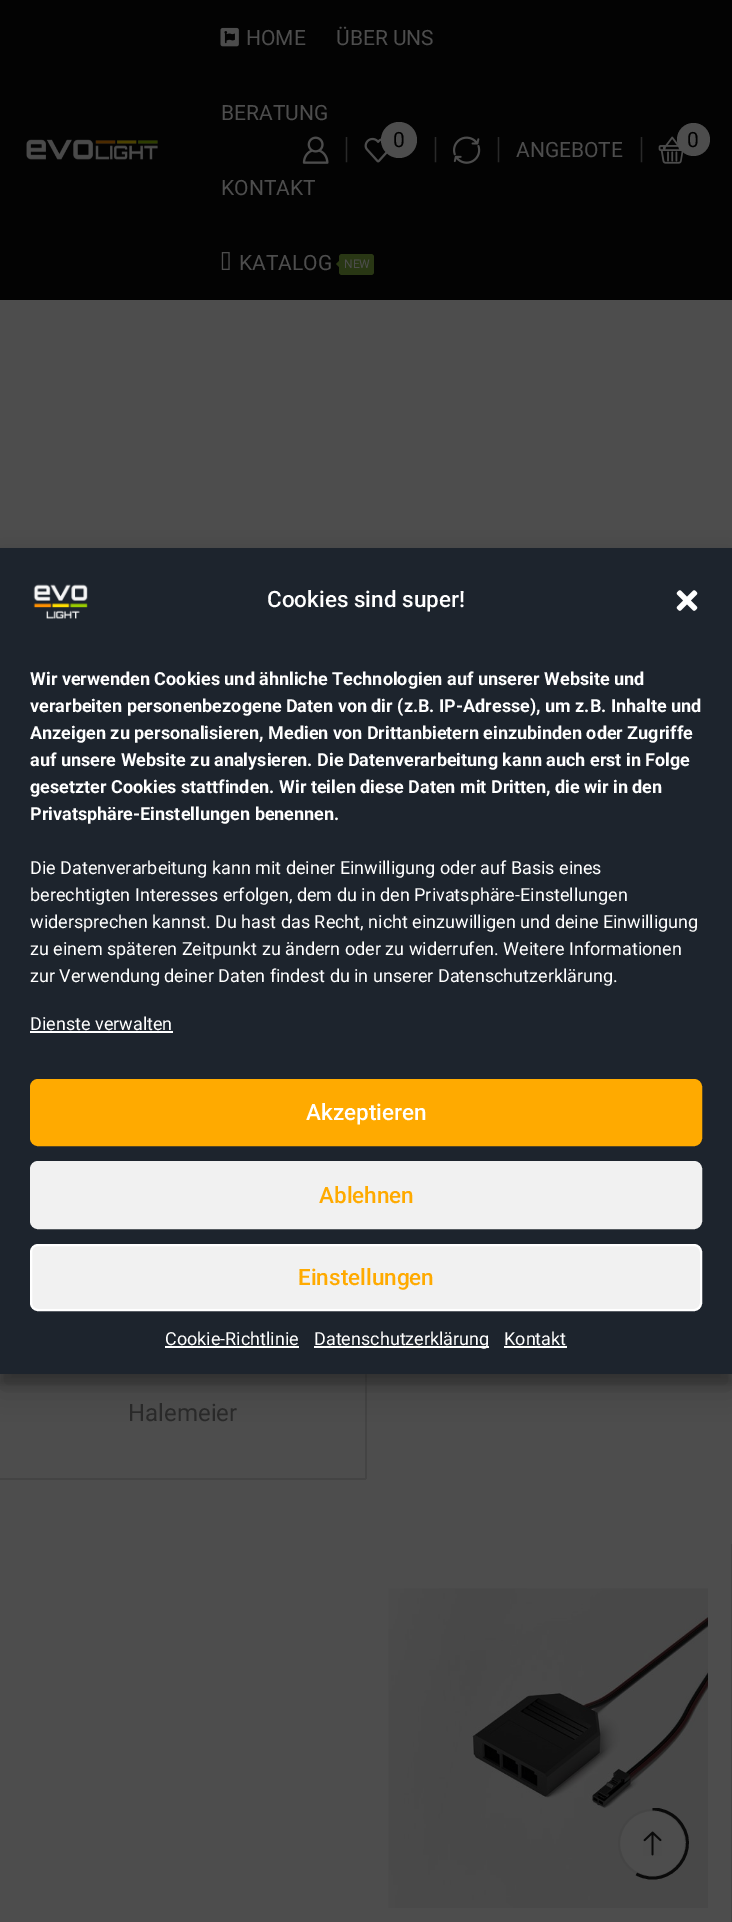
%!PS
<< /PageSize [732 1922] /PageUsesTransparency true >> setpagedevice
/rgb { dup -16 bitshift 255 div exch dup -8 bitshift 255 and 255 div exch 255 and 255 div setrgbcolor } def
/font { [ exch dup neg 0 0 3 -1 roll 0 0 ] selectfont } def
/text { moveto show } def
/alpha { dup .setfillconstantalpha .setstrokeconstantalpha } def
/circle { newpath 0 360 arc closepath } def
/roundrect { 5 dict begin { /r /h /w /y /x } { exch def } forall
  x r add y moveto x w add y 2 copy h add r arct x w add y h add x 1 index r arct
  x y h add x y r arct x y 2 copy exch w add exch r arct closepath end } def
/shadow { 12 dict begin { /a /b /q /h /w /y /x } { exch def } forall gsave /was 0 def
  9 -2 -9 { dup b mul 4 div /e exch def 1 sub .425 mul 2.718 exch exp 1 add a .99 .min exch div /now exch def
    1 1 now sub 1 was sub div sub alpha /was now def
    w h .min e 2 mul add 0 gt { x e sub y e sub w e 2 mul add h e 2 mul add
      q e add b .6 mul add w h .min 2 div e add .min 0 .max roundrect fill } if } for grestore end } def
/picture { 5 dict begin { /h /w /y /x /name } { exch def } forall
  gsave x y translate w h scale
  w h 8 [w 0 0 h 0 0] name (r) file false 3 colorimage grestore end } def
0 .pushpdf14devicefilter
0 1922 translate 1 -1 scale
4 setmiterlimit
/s1 { /Roboto-Regular 21 font 16#4D4D4D rgb } def
/s2 { /Roboto-Regular 12 font 16#4D4D4D rgb } def
/s3 { /LiberationSerif-Regular 21 font 16#292929 rgb } def
/s4 { /Roboto-Regular 21 font 16#000000 rgb } def
/s5 { /Roboto-Regular 24 font 16#292929 rgb } def
/s6 { /Roboto-Medium 22.5 font 16#FFFFFF rgb } def
/s7 { /Roboto-Bold 18 font 16#FFFFFF rgb } def
/s8 { /Roboto-Regular 18 font 16#FFFFFF rgb } def
/s9 { /Roboto-Medium 22.5 font 16#FFAA00 rgb } def
16#4D4D4D rgb
0 0 732 1922 rectfill
16#030303 rgb
0 0 732 300 rectfill
(pic1.raw) 26 139 132 21 picture
(pic2.raw) 220 27 19 20 picture
s1
(HOME) 246 45 text
(ÜBER UNS) 336 45 text
(BERATUNG) 221 120 text
(KONTAKT) 221 195 text
(pic3.raw) 221 252 9 18 picture
(KATALOG) 239 270 text
16#293714 rgb
339 254 35 21 3 roundrect fill
340.5 259.5 moveto 340.5 268.5 lineto 336 264 lineto closepath fill
s2
(NEW) 344 268 text
(pic4.raw) 302 136 27 28 picture
s3
(│) 339 156 text
(pic5.raw) 364 137 24 26 picture
16#4D4D4D rgb
399 140 18 circle fill
s4
(0) 393 147 text
s3
(│) 428 156 text
(pic6.raw) 453 136 28 28 picture
(│) 491 156 text
s1
(ANGEBOTE) 516 157 text
s3
(│) 634 156 text
(pic7.raw) 658 136 26 28 picture
16#4D4D4D rgb
693.5 139.5 16.5 circle fill
s4
(0) 687 147 text
16#444444 rgb
365 1374 2 105 rectfill
0 1478 366 2 rectfill
s5
(Halemeier) 128 1421 text
16#444444 rgb
731 1544 1 378 rectfill
(pic8.raw) 388 1588 320 320 picture
16#4D4D4D rgb
652.5 1843.5 33.5 circle gsave fill grestore
16#454545 rgb
2 setlinewidth
stroke
gsave
617 1808 72 72 rectclip
16#0A0A0A rgb
2.8 setlinewidth
652.5 1809 moveto 661.5 1809 670.5 1812.5 677 1819 curveto 705.5 1847.5 670.5 1892 636.5 1874 curveto stroke
grestore
(pic9.raw) 643 1831 19 25 picture
16#000000 rgb
0 557 732 826 0 4.5 0.23 shadow
0 563 732 826 0 15 0.19 shadow
16#1D242D rgb
0 548 732 826 rectfill
(pic10.raw) 33 584 55 35 picture
s6
(Cookies sind super!) 267 607 text
(pic11.raw) 676 590 22 21 picture
s7
(Wir verwenden Cookies und ähnliche Technologien auf unserer Website und) 30 685 text
(verarbeiten personenbezogene Daten von dir \(z.B. IP-Adresse\), um z.B. Inhalte und) 30 712 text
(Anzeigen zu personalisieren, Medien von Drittanbietern einzubinden oder Zugriffe) 30 739 text
(auf unsere Website zu analysieren. Die Datenverarbeitung kann auch erst in Folge) 30 766 text
(gesetzter Cookies stattfinden. Wir teilen diese Daten mit Dritten, die wir in den) 30 793 text
(Privatsphäre-Einstellungen benennen.) 30 820 text
s8
(Die Datenverarbeitung kann mit deiner Einwilligung oder auf Basis eines) 30 874 text
(berechtigten Interesses erfolgen, dem du in den Privatsphäre-Einstellungen) 30 901 text
(widersprechen kannst. Du hast das Recht, nicht einzuwilligen und deine Einwilligung) 30 928 text
(zu einem späteren Zeitpunkt zu ändern oder zu widerrufen. Weitere Informationen) 30 955 text
(zur Verwendung deiner Daten findest du in unserer Datenschutzerklärung.) 30 982 text
(Dienste verwalten) 30 1030 text
30 1031 143 2 rectfill
16#FFAA00 rgb
31 1080 670 65 7 roundrect gsave fill grestore
stroke
s6
(Akzeptieren) 306 1120 text
16#F1F1F1 rgb
31 1162 670 66 7 roundrect gsave fill grestore
stroke
s9
(Ablehnen) 319 1203 text
16#F1F1F1 rgb
31 1245 670 65 7 roundrect gsave fill grestore
16#FFFFFF rgb
stroke
s9
(Einstellungen) 298 1285 text
s8
(Cookie-Richtlinie) 165 1345 text
165 1346 134 2 rectfill
314 1346 175 2 rectfill
(Datenschutzerklärung) 314 1345 text
(Kontakt) 504 1345 text
504 1346 63 2 rectfill
.poppdf14devicefilter showpage
